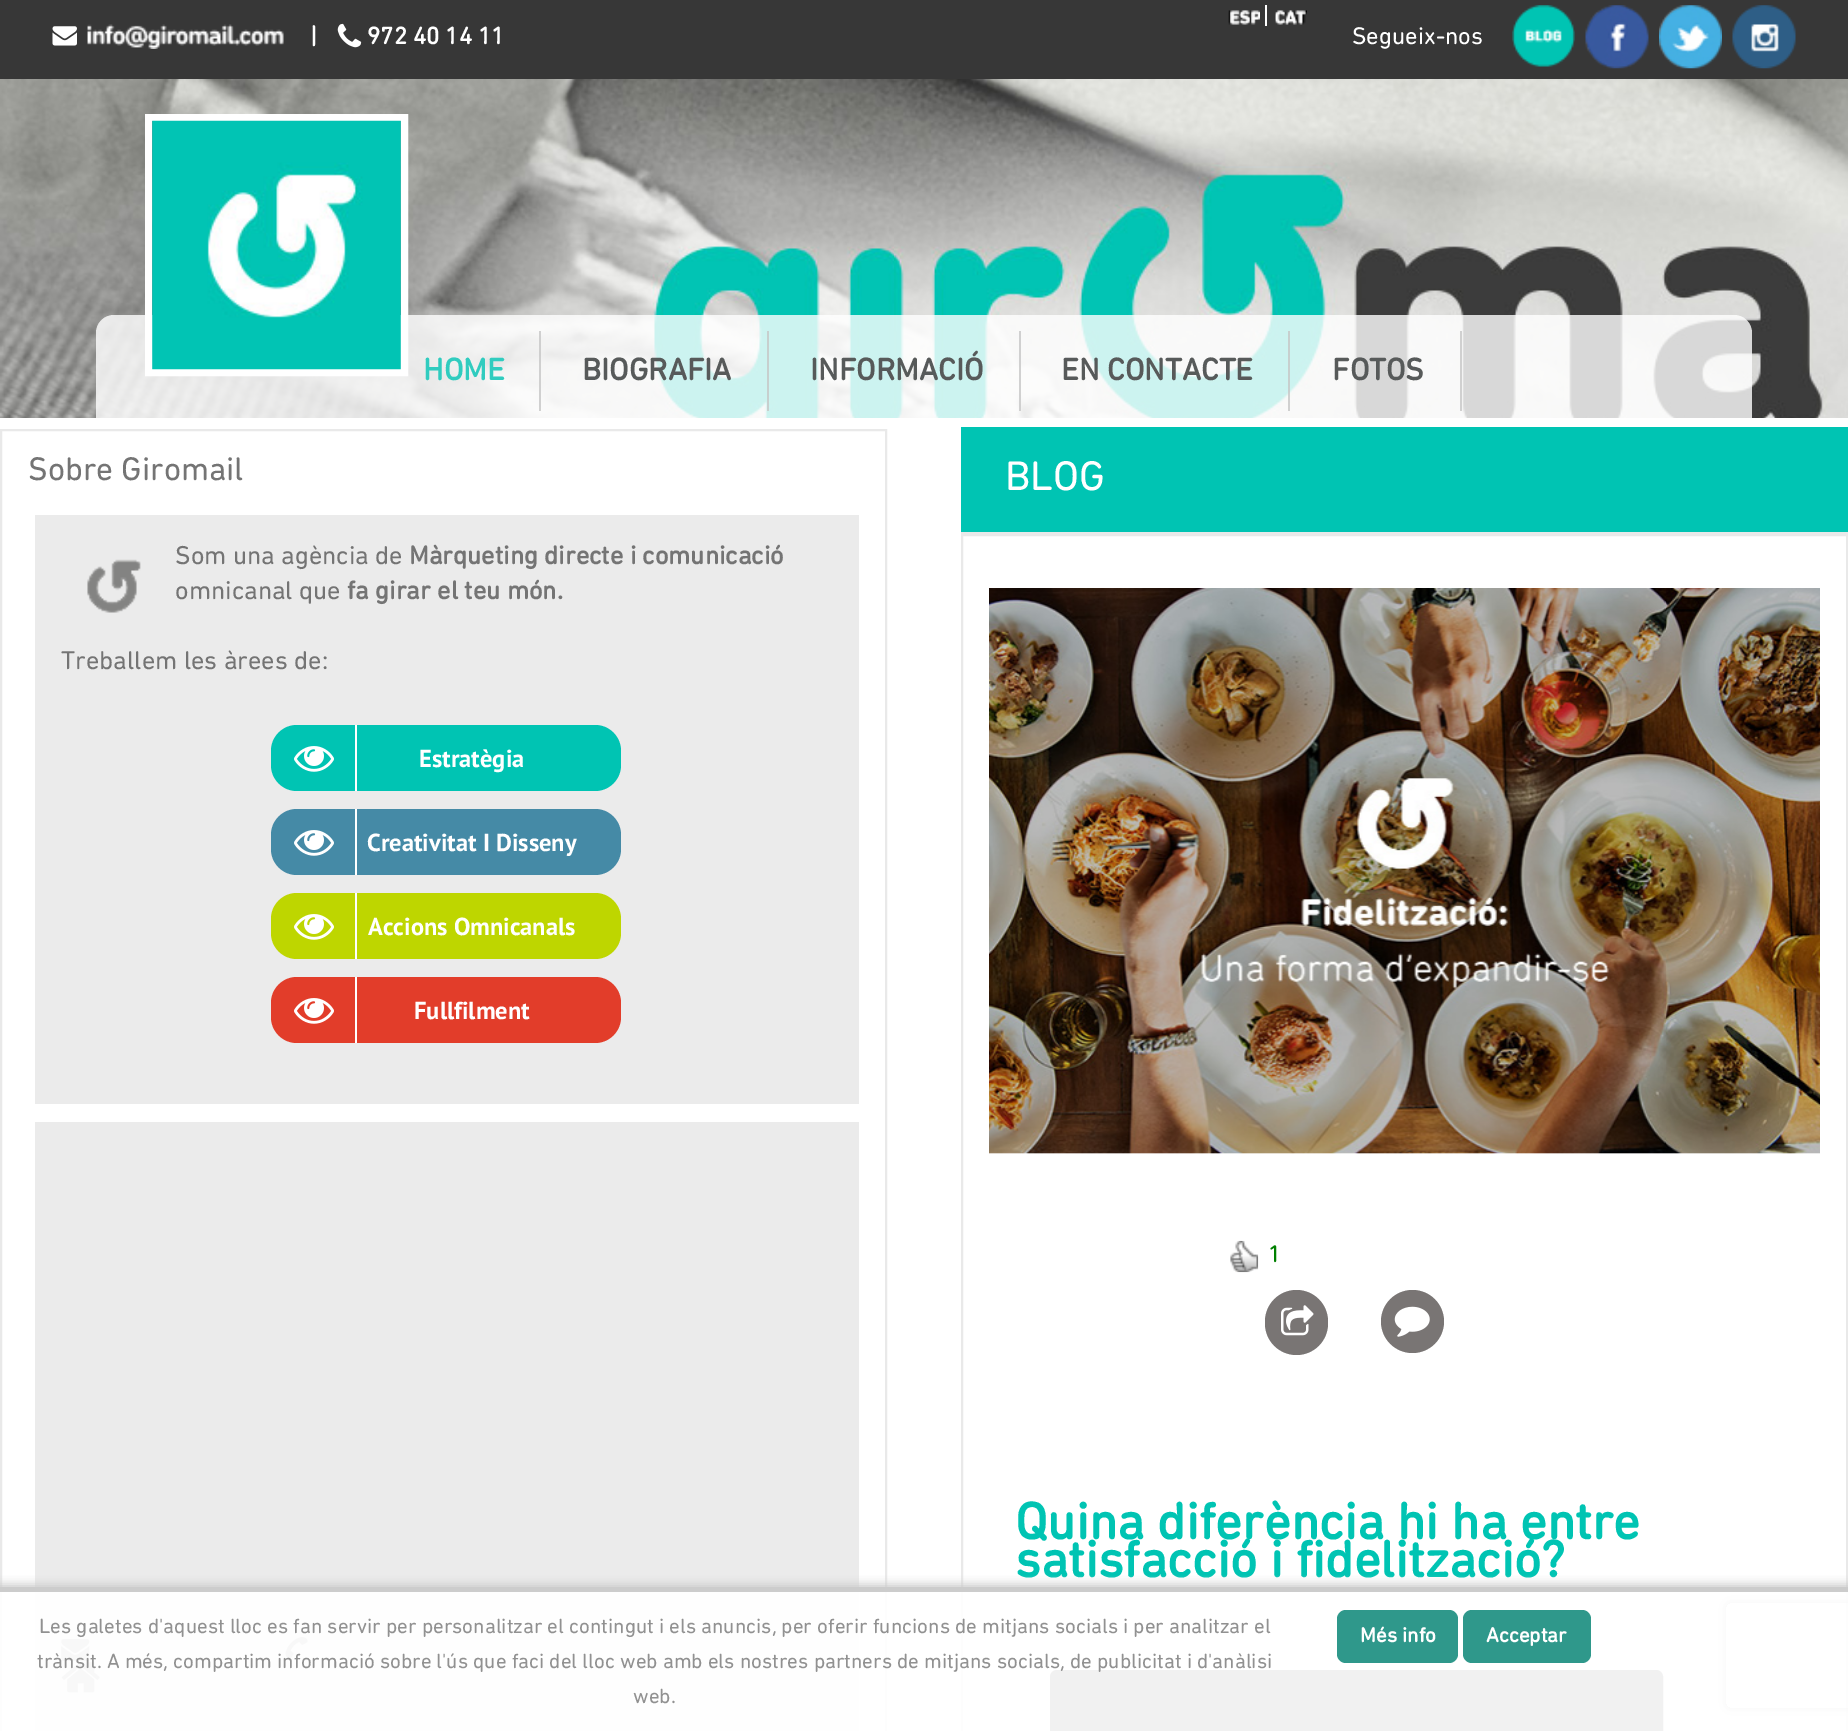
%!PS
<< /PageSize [1848 1731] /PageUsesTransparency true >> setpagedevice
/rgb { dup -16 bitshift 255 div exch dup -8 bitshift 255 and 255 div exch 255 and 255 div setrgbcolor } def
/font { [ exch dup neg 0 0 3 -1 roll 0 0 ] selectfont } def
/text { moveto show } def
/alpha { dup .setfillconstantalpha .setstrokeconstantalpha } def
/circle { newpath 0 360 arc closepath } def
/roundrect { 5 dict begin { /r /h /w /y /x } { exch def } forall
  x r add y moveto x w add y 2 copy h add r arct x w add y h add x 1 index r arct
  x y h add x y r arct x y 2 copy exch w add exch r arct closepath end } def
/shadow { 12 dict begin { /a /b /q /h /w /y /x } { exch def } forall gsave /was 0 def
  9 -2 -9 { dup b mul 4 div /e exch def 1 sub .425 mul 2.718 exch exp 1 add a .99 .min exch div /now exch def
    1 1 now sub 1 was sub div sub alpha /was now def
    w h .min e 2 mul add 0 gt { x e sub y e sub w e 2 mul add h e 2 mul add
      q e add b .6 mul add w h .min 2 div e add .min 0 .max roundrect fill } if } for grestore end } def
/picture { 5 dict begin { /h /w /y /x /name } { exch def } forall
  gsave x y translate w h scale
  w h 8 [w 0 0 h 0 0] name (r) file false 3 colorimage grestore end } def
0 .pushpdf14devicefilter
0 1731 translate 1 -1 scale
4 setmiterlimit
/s1 { /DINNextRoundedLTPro-Bold 24.5 font 16#FFFFFF rgb } def
/s2 { /DINNextRoundedLTPro-Regular 24.5 font 16#FFFFFF rgb } def
/s3 { /DINNextRoundedLTPro-Bold 31.5 font 16#30CCBF rgb } def
/s4 { /DINNextRoundedLTPro-Bold 31.5 font 16#575A5A rgb } def
/s5 { /DINNextRoundedLTPro-Regular 33.25 font 16#747474 rgb } def
/s6 { /DINNextRoundedLTPro-Regular 26.25 font 16#747474 rgb } def
/s7 { /DINNextRoundedLTPro-Bold 26.25 font 16#747474 rgb } def
/s8 { /PTSans-Bold 24.5 font 16#FFFFFF rgb } def
/s9 { /DINNextRoundedLTPro-Regular 42 font 16#FFFFFF rgb } def
/s10 { /DINNextRoundedLTPro-Regular 24.5 font 16#008000 rgb } def
/s11 { /DINNextRoundedLTPro-Bold 52.5 font 16#00C4B3 rgb } def
/s12 { /DINNextRoundedLTPro-Regular 21 font 16#919191 rgb } def
/s13 { /DINNextRoundedLTPro-Bold 21 font 16#FFFFFF rgb } def
16#FFFFFF rgb
0 0 1848 1731 rectfill
16#373737 rgb
0 0 1848 79 rectfill
16#FFFFFF rgb
1265 5 2 21 rectfill
(pic1.raw) 1228 10 32 15 picture
(pic2.raw) 1229 10 31 15 picture
(pic3.raw) 1275 10 32 15 picture
(pic4.raw) 1275 10 31 15 picture
(pic5.raw) 52 26 25 20 picture
(pic6.raw) 87 24 197 25 picture
s1
(|) 310 44 text
(pic7.raw) 337 23 25 25 picture
(972 40 14 11) 367 44 text
s2
(Segueix-nos) 1352 44 text
(pic8.raw) 1512 5 63 62 picture
(pic9.raw) 1585 5 64 64 picture
(pic10.raw) 1659 5 63 64 picture
(pic11.raw) 1732 5 64 64 picture
(pic12.raw) 0 79 1848 339 picture
0.8 alpha
114 315 moveto 1734 315 lineto 1744 315 1752 323 1752 333 curveto 1752 420 lineto 96 420 lineto 96 333 lineto 96 323 104 315 114 315 curveto closepath fill
1 alpha
7 setlinewidth
148.5 117.5 256 255 rectstroke
(pic13.raw) 152 120 249 250 picture
0.8 alpha
16#C6C6C6 rgb
539 331 2 80 rectfill
1 alpha
s3
(HOME) 423 380 text
16#C7CFCE rgb
767 331 2 80 rectfill
s4
(BIOGRAFIA) 582 380 text
0.8 alpha
16#C6C6C6 rgb
1019 331 2 80 rectfill
1 alpha
s4
(INFORMACIÓ) 810 380 text
0.8 alpha
16#C6C6C6 rgb
1288 331 2 80 rectfill
1 alpha
s4
(EN CONTACTE) 1061 380 text
16#D0D0D0 rgb
1460 331 2 80 rectfill
s4
(FOTOS) 1332 380 text
16#E9E9E9 rgb
2 setlinewidth
1 430 885 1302 rectstroke
s5
(Sobre Giromail) 28 480 text
16#EBEBEB rgb
35 515 824 589 rectfill
(pic14.raw) 87 559 54 54 picture
s6
(Som una agència de) 175 564 text
s7
(Màrqueting directe i comunicació) 409 564 text
s6
(omnicanal que) 175 599 text
s7
(fa girar el teu món.) 347 599 text
s6
(Treballem les àrees de:) 61 669 text
16#00C4B3 rgb
271 725 350 66 26 roundrect fill
16#FFFFFF rgb
355 725 2 66 rectfill
(pic15.raw) 294 746 40 26 picture
s8
(Estratègia) 419 767 text
16#458AA6 rgb
271 809 350 66 26 roundrect fill
16#FFFFFF rgb
355 809 2 66 rectfill
(pic16.raw) 294 830 40 26 picture
(Creativitat I Disseny) 367 851 text
16#BED600 rgb
271 893 350 66 26 roundrect fill
16#FFFFFF rgb
355 893 2 66 rectfill
(pic17.raw) 294 914 40 26 picture
(Accions Omnicanals) 368 935 text
16#E23D2A rgb
271 977 350 66 26 roundrect fill
16#FFFFFF rgb
355 977 2 66 rectfill
(pic18.raw) 294 998 40 26 picture
(Fullfilment) 414 1019 text
16#EBEBEB rgb
35 1122 824 609 rectfill
(pic19.raw) 61 1639 29 22 picture
(pic20.raw) 285 1637 23 22 picture
(pic21.raw) 61 1662 39 31 picture
16#00C4B3 rgb
961 427 887 105 rectfill
s9
(BLOG) 1005 490 text
16#E9E9E9 rgb
961 532 887 2 rectfill
962 535 885 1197 rectstroke
(pic22.raw) 989 588 831 566 picture
(pic23.raw) 1230 1240 29 33 picture
s10
(1) 1268 1262 text
16#797574 rgb
1265 1290 63 65 31.5 roundrect fill
(pic24.raw) 1281 1305 33 31 picture
1412.5 1321.5 31.5 circle fill
(pic25.raw) 1394 1306 36 31 picture
s11
(Quina diferència hi ha entre) 1015 1539 text
(satisfacció i fidelització?) 1015 1577 text
16#373737 rgb
1057 1671 moveto 1656 1671 lineto 1659.5 1671 1662 1673.5 1662 1677 curveto 1662 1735 lineto 1051 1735 lineto 1051 1677 lineto 1051 1673.5 1053.5 1671 1057 1671 curveto closepath gsave fill grestore
stroke
gsave
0 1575 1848 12 rectclip
16#CCCCCC rgb
-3 1584 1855 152 0 4.5 1 shadow
grestore
gsave
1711 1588 moveto 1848 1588 lineto 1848 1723 lineto 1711 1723 lineto closepath 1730 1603 moveto 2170 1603 lineto 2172 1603 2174 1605 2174 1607 curveto 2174 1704 lineto 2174 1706 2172 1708 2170 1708 curveto 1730 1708 lineto 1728 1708 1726 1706 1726 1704 curveto 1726 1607 lineto 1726 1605 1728 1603 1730 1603 curveto closepath eoclip newpath
16#808080 rgb
1726 1603 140 105 4 4.5 1 shadow
grestore
0.93 alpha
16#FFFFFF rgb
0 1592 1848 139 rectfill
1 alpha
16#CCCCCC rgb
0 1587 1848 5 rectfill
s12
(Les galetes d'aquest lloc es fan servir per personalitzar el contingut i els anuncis, per oferir funcions de mitjans socials i per analitzar el) 39 1633 text
(trànsit. A més, compartim informació sobre l'ús que faci del lloc web amb els nostres partners de mitjans socials, de publicitat i d'anàlisi) 37 1668 text
(web.) 633 1703 text
16#2F988B rgb
1337 1610 121 53 9 roundrect fill
s13
(Més info) 1360 1642 text
16#2F988B rgb
1463 1610 128 53 9 roundrect fill
s13
(Acceptar) 1486 1642 text
.poppdf14devicefilter showpage
